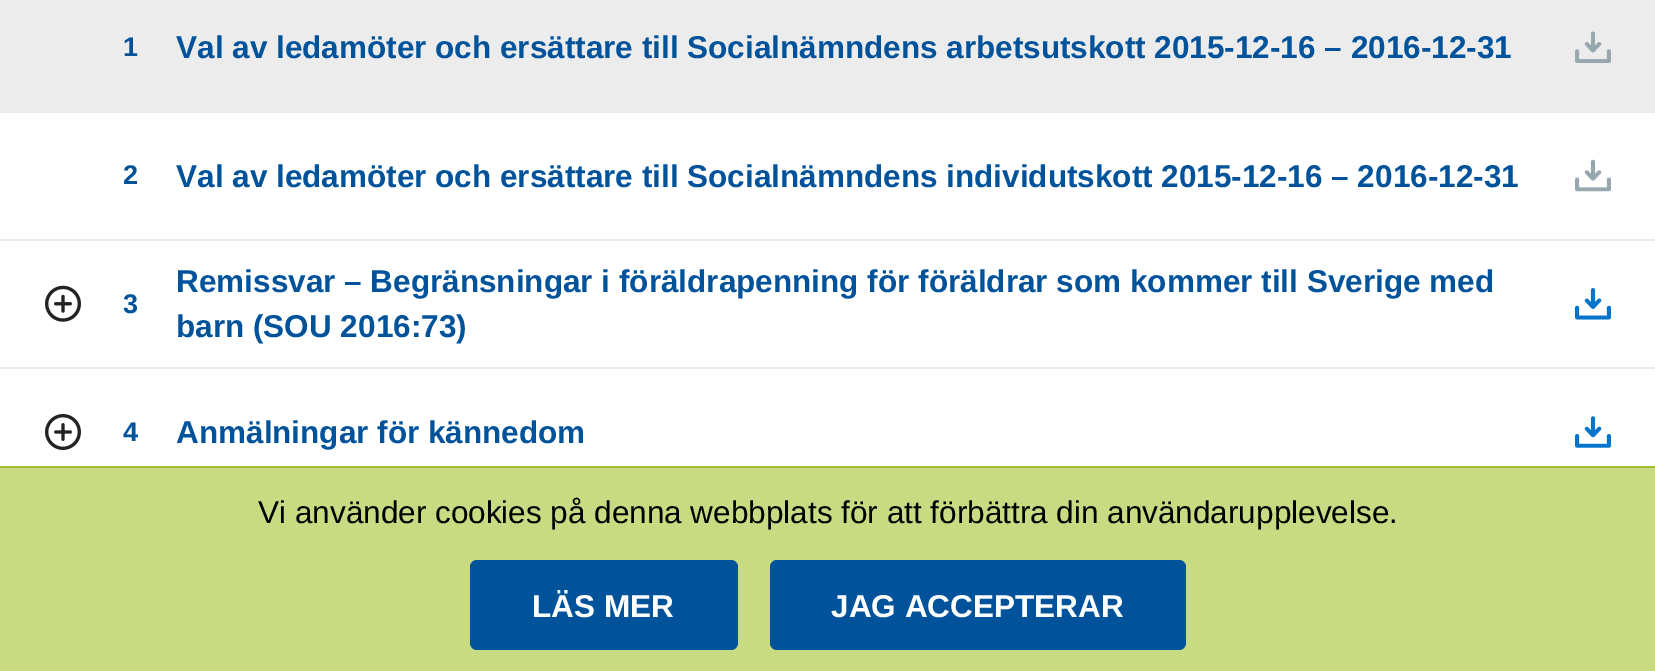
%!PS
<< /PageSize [1655 671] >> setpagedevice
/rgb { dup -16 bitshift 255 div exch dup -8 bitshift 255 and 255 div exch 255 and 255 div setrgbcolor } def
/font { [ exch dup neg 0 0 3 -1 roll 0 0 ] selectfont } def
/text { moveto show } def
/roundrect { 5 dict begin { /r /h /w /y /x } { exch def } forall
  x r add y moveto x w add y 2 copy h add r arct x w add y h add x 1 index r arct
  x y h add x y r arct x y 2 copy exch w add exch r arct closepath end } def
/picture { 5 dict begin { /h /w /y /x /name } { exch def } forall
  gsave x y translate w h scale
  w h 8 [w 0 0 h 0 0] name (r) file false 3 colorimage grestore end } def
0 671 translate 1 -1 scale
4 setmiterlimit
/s1 { /LiberationSans-Bold 27 font 16#00539B rgb } def
/s2 { /LiberationSans-Bold 31.5 font 16#00539B rgb } def
/s3 { /LiberationSans-Regular 31.5 font 16#000000 rgb } def
/s4 { /LiberationSans-Bold 31.5 font 16#FFFFFF rgb } def
16#FFFFFF rgb
0 0 1655 671 rectfill
16#ECECEC rgb
0 0 1655 113 rectfill
s1
(1) 123 56 text
s2
(Val av ledamöter och ersättare till Socialnämndens arbetsutskott 2015-12-16 – 2016-12-31) 176 58 text
(pic1.raw) 1575 31 36 32 picture
16#ECECEC rgb
0 239 1655 2 rectfill
s1
(2) 123 184 text
s2
(Val av ledamöter och ersättare till Socialnämndens individutskott 2015-12-16 – 2016-12-31) 176 187 text
(pic2.raw) 1575 159 36 33 picture
16#ECECEC rgb
0 367 1655 2 rectfill
(pic3.raw) 45 285 36 37 picture
s1
(3) 123 313 text
s2
(Remissvar – Begränsningar i föräldrapenning för föräldrar som kommer till Sverige med) 176 292 text
(barn \(SOU 2016:73\)) 176 337 text
(pic4.raw) 1575 288 36 32 picture
(pic5.raw) 45 414 36 36 picture
s1
(4) 123 441 text
s2
(Anmälningar för kännedom) 176 443 text
(pic6.raw) 1575 416 36 32 picture
16#C8DB82 rgb
0 468 1655 203 rectfill
16#A2C037 rgb
0 466 1655 2 rectfill
s3
(Vi använder cookies på denna webbplats för att förbättra din användarupplevelse.) 258 523 text
16#00539B rgb
470 560 268 90 7 roundrect fill
s4
(LÄS MER) 532 617 text
16#00539B rgb
770 560 416 90 7 roundrect fill
s4
(JAG ACCEPTERAR) 831 617 text
showpage
